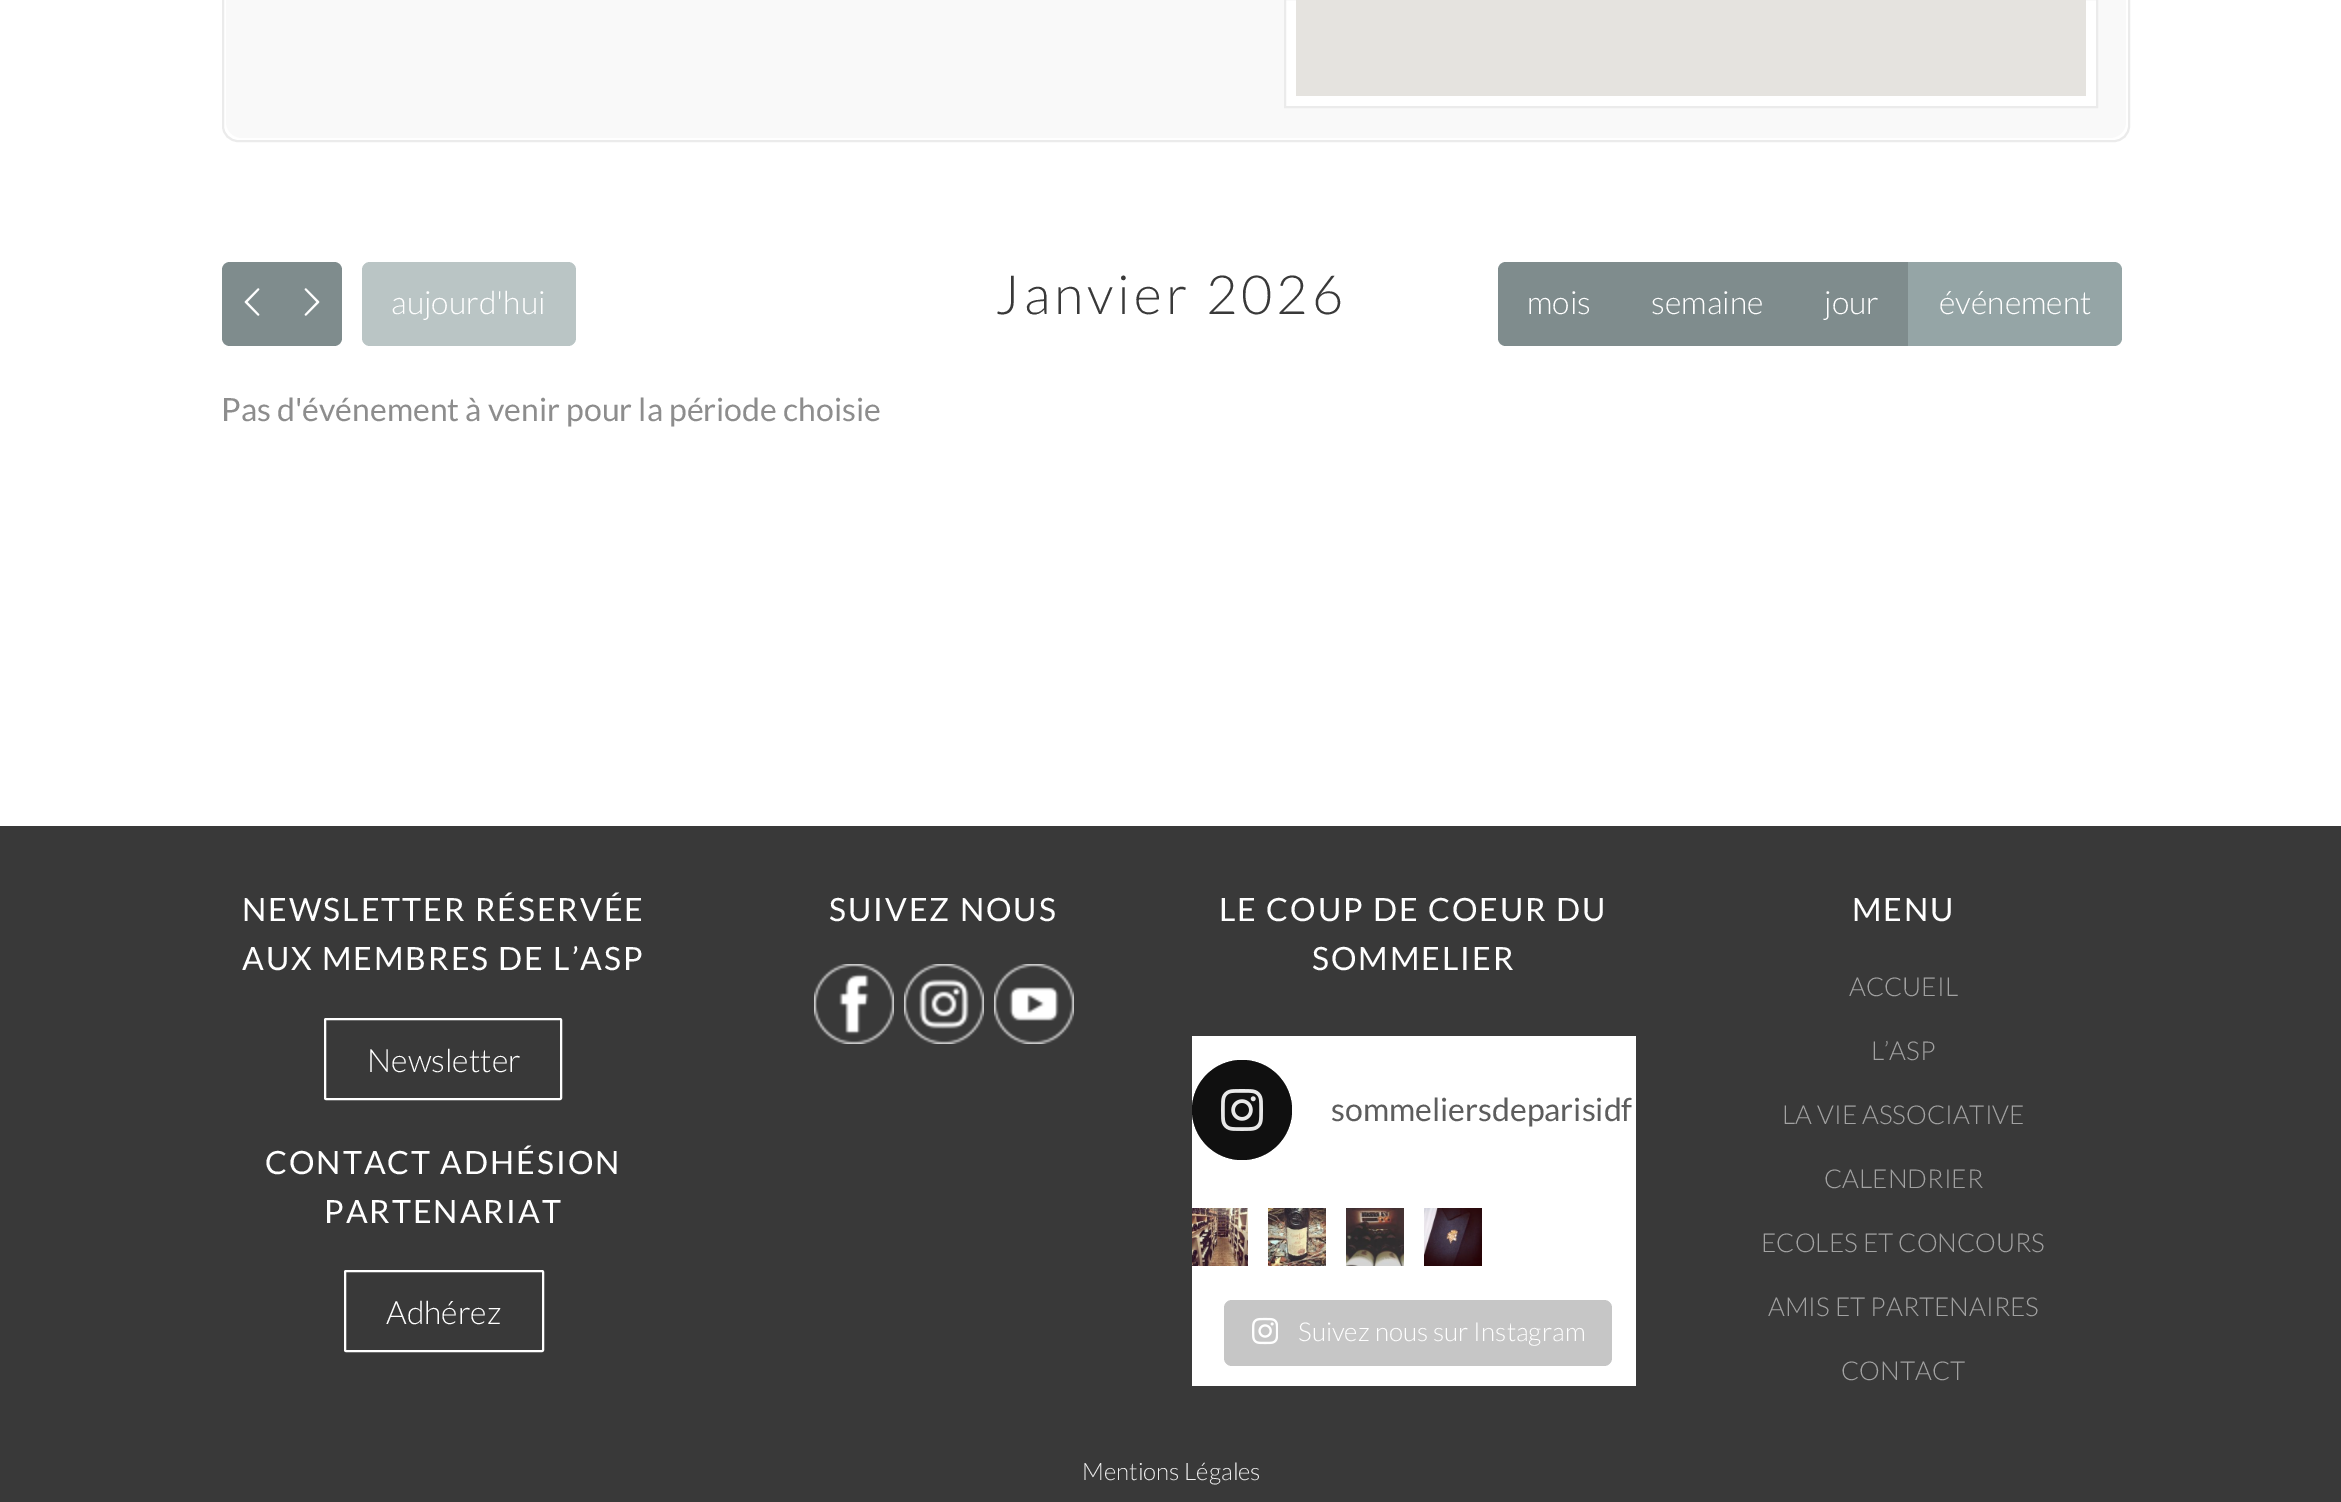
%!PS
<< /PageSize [2341 1502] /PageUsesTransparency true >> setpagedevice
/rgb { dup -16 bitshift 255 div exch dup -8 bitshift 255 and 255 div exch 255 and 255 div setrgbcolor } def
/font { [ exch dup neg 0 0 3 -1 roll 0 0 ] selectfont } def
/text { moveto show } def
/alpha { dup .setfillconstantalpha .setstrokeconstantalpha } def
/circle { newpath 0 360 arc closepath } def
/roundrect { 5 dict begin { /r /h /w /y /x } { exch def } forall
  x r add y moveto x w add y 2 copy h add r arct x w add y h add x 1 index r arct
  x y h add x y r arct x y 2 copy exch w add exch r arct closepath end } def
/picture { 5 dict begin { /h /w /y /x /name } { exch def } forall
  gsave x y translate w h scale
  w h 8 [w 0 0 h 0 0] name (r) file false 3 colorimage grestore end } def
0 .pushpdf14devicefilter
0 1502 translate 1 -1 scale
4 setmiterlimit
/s1 { /Lato-Light 32 font 16#FFFFFF rgb } def
/s2 { /Lato-Regular 32 font 16#8D8D8D rgb } def
/s3 { /Lato-Regular 32 font 16#5D5D5D rgb } def
/s4 { /Lato-Light 26 font 16#FFFFFF rgb } def
/s5 { /Lato-Light 26 font 16#A2A2A2 rgb } def
/s6 { /Lato-Light 24 font 16#EDEDED rgb } def
16#FFFFFF rgb
0 0 2341 1502 rectfill
16#EBEBEB rgb
2 setlinewidth
223 -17 1906 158 15 roundrect stroke
16#F9F9F9 rgb
226 -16 1900 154 16 roundrect fill
16#FFFFFF rgb
1285 -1 moveto 2097 -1 lineto 2097 107 lineto 1285 107 lineto closepath gsave fill grestore
16#EBEBEB rgb
stroke
16#E5E3DF rgb
1296 0 790 96 rectfill
16#7F8C8D rgb
230 262 moveto 282 262 lineto 282 346 lineto 230 346 lineto 225.5 346 222 342.5 222 338 curveto 222 270 lineto 222 265.5 225.5 262 230 262 curveto closepath fill
(pic1.raw) 244 288 16 28 picture
282 262 moveto 334 262 lineto 338.5 262 342 265.5 342 270 curveto 342 338 lineto 342 342.5 338.5 346 334 346 curveto 282 346 lineto closepath fill
(pic2.raw) 304 288 16 28 picture
16#BAC5C5 rgb
362 262 214 84 8 roundrect fill
s1
(aujourd'hui) 391 314 text
/Lato-Light 54 font
16#393939 rgb
995 314 moveto 4 0 (Janvier 2026) ashow
16#7F8C8D rgb
1506 262 moveto 1622 262 lineto 1622 346 lineto 1506 346 lineto 1501.5 346 1498 342.5 1498 338 curveto 1498 270 lineto 1498 265.5 1501.5 262 1506 262 curveto closepath fill
s1
(mois) 1527 314 text
16#7F8C8D rgb
1622 262 286 84 rectfill
s1
(semaine) 1651 314 text
(jour) 1824 314 text
16#95A5A6 rgb
1908 262 moveto 2114 262 lineto 2118.5 262 2122 265.5 2122 270 curveto 2122 338 lineto 2122 342.5 2118.5 346 2114 346 curveto 1908 346 lineto closepath fill
s1
(événement) 1939 314 text
s2
(Pas d'événement à venir pour la période choisie) 221 421 text
16#393939 rgb
0 826 2341 676 rectfill
16#FFFFFF rgb
242 921 moveto 2 0 (NEWSLETTER RÉSERVÉE) ashow
242 970 moveto 2 0 (AUX MEMBRES DE L’ASP) ashow
325 1019 236 80 1 roundrect stroke
s1
(Newsletter) 367 1072 text
/Lato-Regular 32 font
265 1174 moveto 2 0 (CONTACT ADHÉSION) ashow
324 1223 moveto 2 0 (PARTENARIAT) ashow
345 1271 198 80 1 roundrect stroke
s1
(Adhérez) 386 1324 text
/Lato-Regular 32 font
829 921 moveto 2 0 (SUIVEZ NOUS) ashow
(pic3.raw) 814 964 80 80 picture
(pic4.raw) 904 964 80 80 picture
(pic5.raw) 994 964 80 80 picture
1219 921 moveto 2 0 (LE COUP DE COEUR DU) ashow
1312 970 moveto 2 0 (SOMMELIER) ashow
1192 1036 444 350 rectfill
16#333333 rgb
1242 1110 50 circle fill
0.68 alpha
16#000000 rgb
1242 1110 50 circle fill
1 alpha
(pic6.raw) 1221 1089 42 42 picture
s3
(sommeliersdeparisidf) 1331 1121 text
(pic7.raw) 1192 1208 56 58 picture
(pic8.raw) 1268 1208 58 58 picture
(pic9.raw) 1346 1208 58 58 picture
(pic10.raw) 1424 1208 58 58 picture
16#C6C6C6 rgb
1224 1300 388 66 8 roundrect fill
(pic11.raw) 1252 1317 26 28 picture
s4
(Suivez nous sur Instagram) 1298 1341 text
/Lato-Regular 32 font
1852 921 moveto 2 0 (MENU) ashow
s5
(ACCUEIL) 1849 996 text
(L’ASP) 1871 1060 text
(LA VIE ASSOCIATIVE) 1782 1124 text
(CALENDRIER) 1824 1188 text
(ECOLES ET CONCOURS) 1761 1252 text
(AMIS ET PARTENAIRES) 1768 1316 text
(CONTACT) 1841 1380 text
s6
(Mentions Légales) 1082 1480 text
.poppdf14devicefilter showpage
